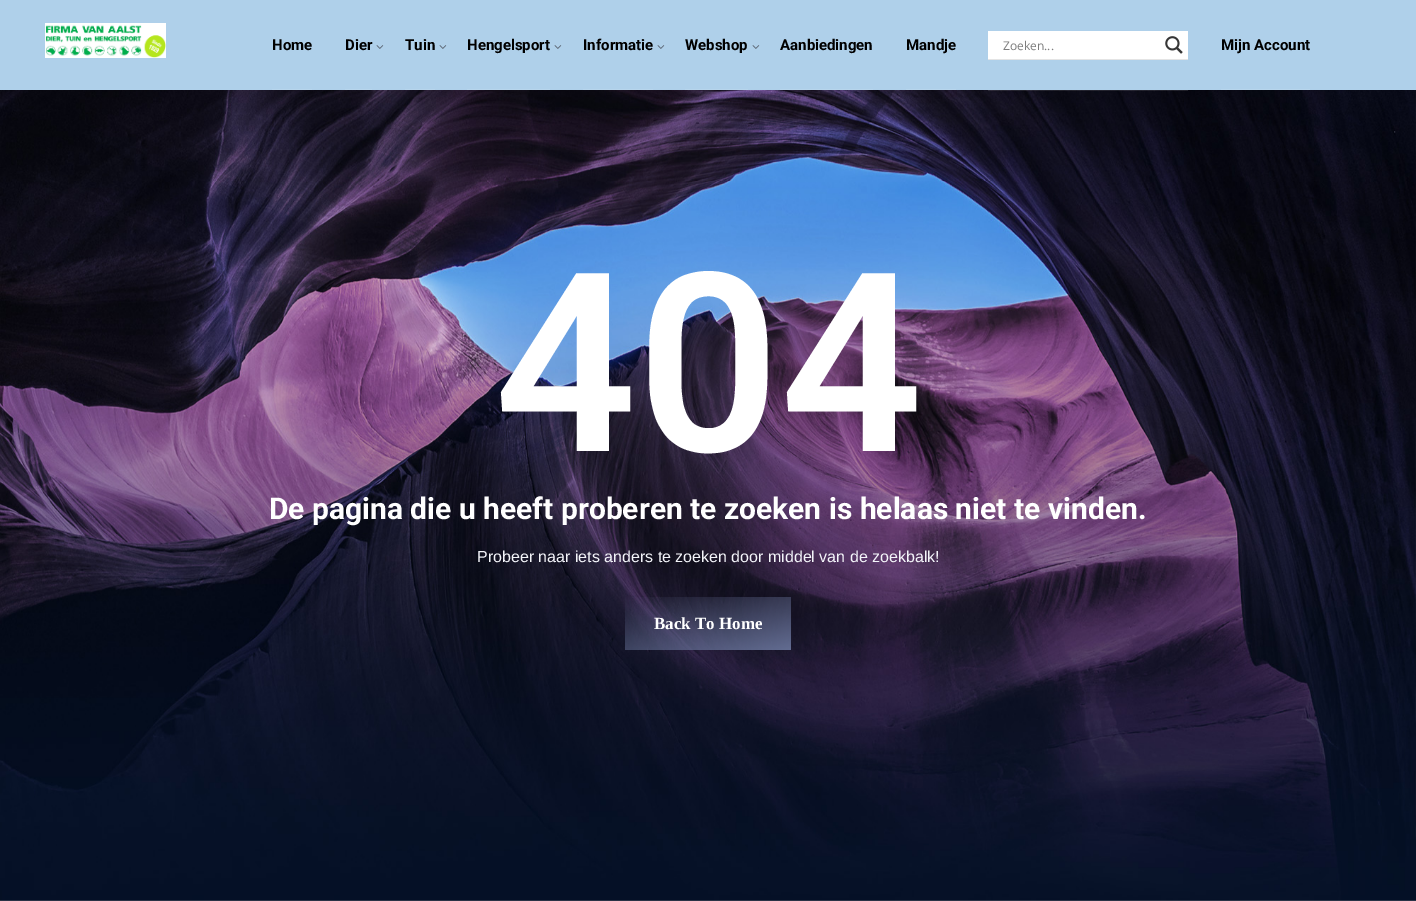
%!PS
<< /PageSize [1416 901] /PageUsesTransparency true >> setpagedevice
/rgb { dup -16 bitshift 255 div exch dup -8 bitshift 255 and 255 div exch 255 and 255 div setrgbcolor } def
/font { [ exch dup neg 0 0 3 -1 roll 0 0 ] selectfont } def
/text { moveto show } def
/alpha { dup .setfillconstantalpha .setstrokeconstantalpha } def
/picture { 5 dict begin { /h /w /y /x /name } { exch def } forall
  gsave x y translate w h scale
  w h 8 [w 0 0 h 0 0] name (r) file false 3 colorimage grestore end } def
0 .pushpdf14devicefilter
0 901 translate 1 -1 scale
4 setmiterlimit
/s1 { /Roboto-Bold 15 font 16#000000 rgb } def
/s2 { /OpenSans-Regular 12 font 16#7D7D7D rgb } def
/s3 { /Roboto-SemiBold 250 font 16#FFFFFF rgb } def
/s4 { /Roboto-Bold 30 font 16#FFFFFF rgb } def
/s5 { /LiberationSans-Regular 16 font 16#F4F5FA rgb } def
/s6 { /LiberationSerif-Bold 17 font 16#FFFFFF rgb } def
16#FFFFFF rgb
0 0 1416 901 rectfill
16#AFD0EA rgb
0 0 1416 90 rectfill
(pic1.raw) 45 23 121 35 picture
16#B7D5EC rgb
272 89 40 1 rectfill
s1
(Home) 272 50 text
16#B7D5EC rgb
345 89 27 1 rectfill
s1
(Dier) 345 50 text
(pic2.raw) 376 45 8 4 picture
16#B7D5EC rgb
405 89 30 1 rectfill
s1
(Tuin) 405 50 text
(pic2.raw) 439 45 8 4 picture
16#B7D5EC rgb
467 89 83 1 rectfill
s1
(Hengelsport) 467 50 text
(pic2.raw) 554 45 8 4 picture
16#B7D5EC rgb
583 89 70 1 rectfill
s1
(Informatie) 583 50 text
(pic2.raw) 657 45 8 4 picture
16#B7D5EC rgb
685 89 63 1 rectfill
s1
(Webshop) 685 50 text
(pic2.raw) 752 45 8 4 picture
16#B7D5EC rgb
780 89 93 1 rectfill
s1
(Aanbiedingen) 780 50 text
16#B7D5EC rgb
906 89 50 1 rectfill
s1
(Mandje) 906 50 text
(pic4.raw) 0 90 1416 811 picture
0.1 alpha
16#FFFFFF rgb
988 90 200 1 rectfill
1 alpha
16#E4E4E4 rgb
988 59 200 1 rectfill
16#FFFFFF rgb
988 31 200 28 rectfill
s2
(Zoeken...) 1003 50 text
(pic3.raw) 1165 36 18 18 picture
16#B7D5EC rgb
1221 89 89 1 rectfill
s1
(Mijn Account) 1221 50 text
s3
(404) 494 451 text
s4
(De pagina die u heeft proberen te zoeken is helaas niet te vinden.) 269 519 text
s5
(Probeer naar iets anders te zoeken door middel van de zoekbalk!) 477 562 text
s6
(Back To Home) 654 629 text
.poppdf14devicefilter showpage
